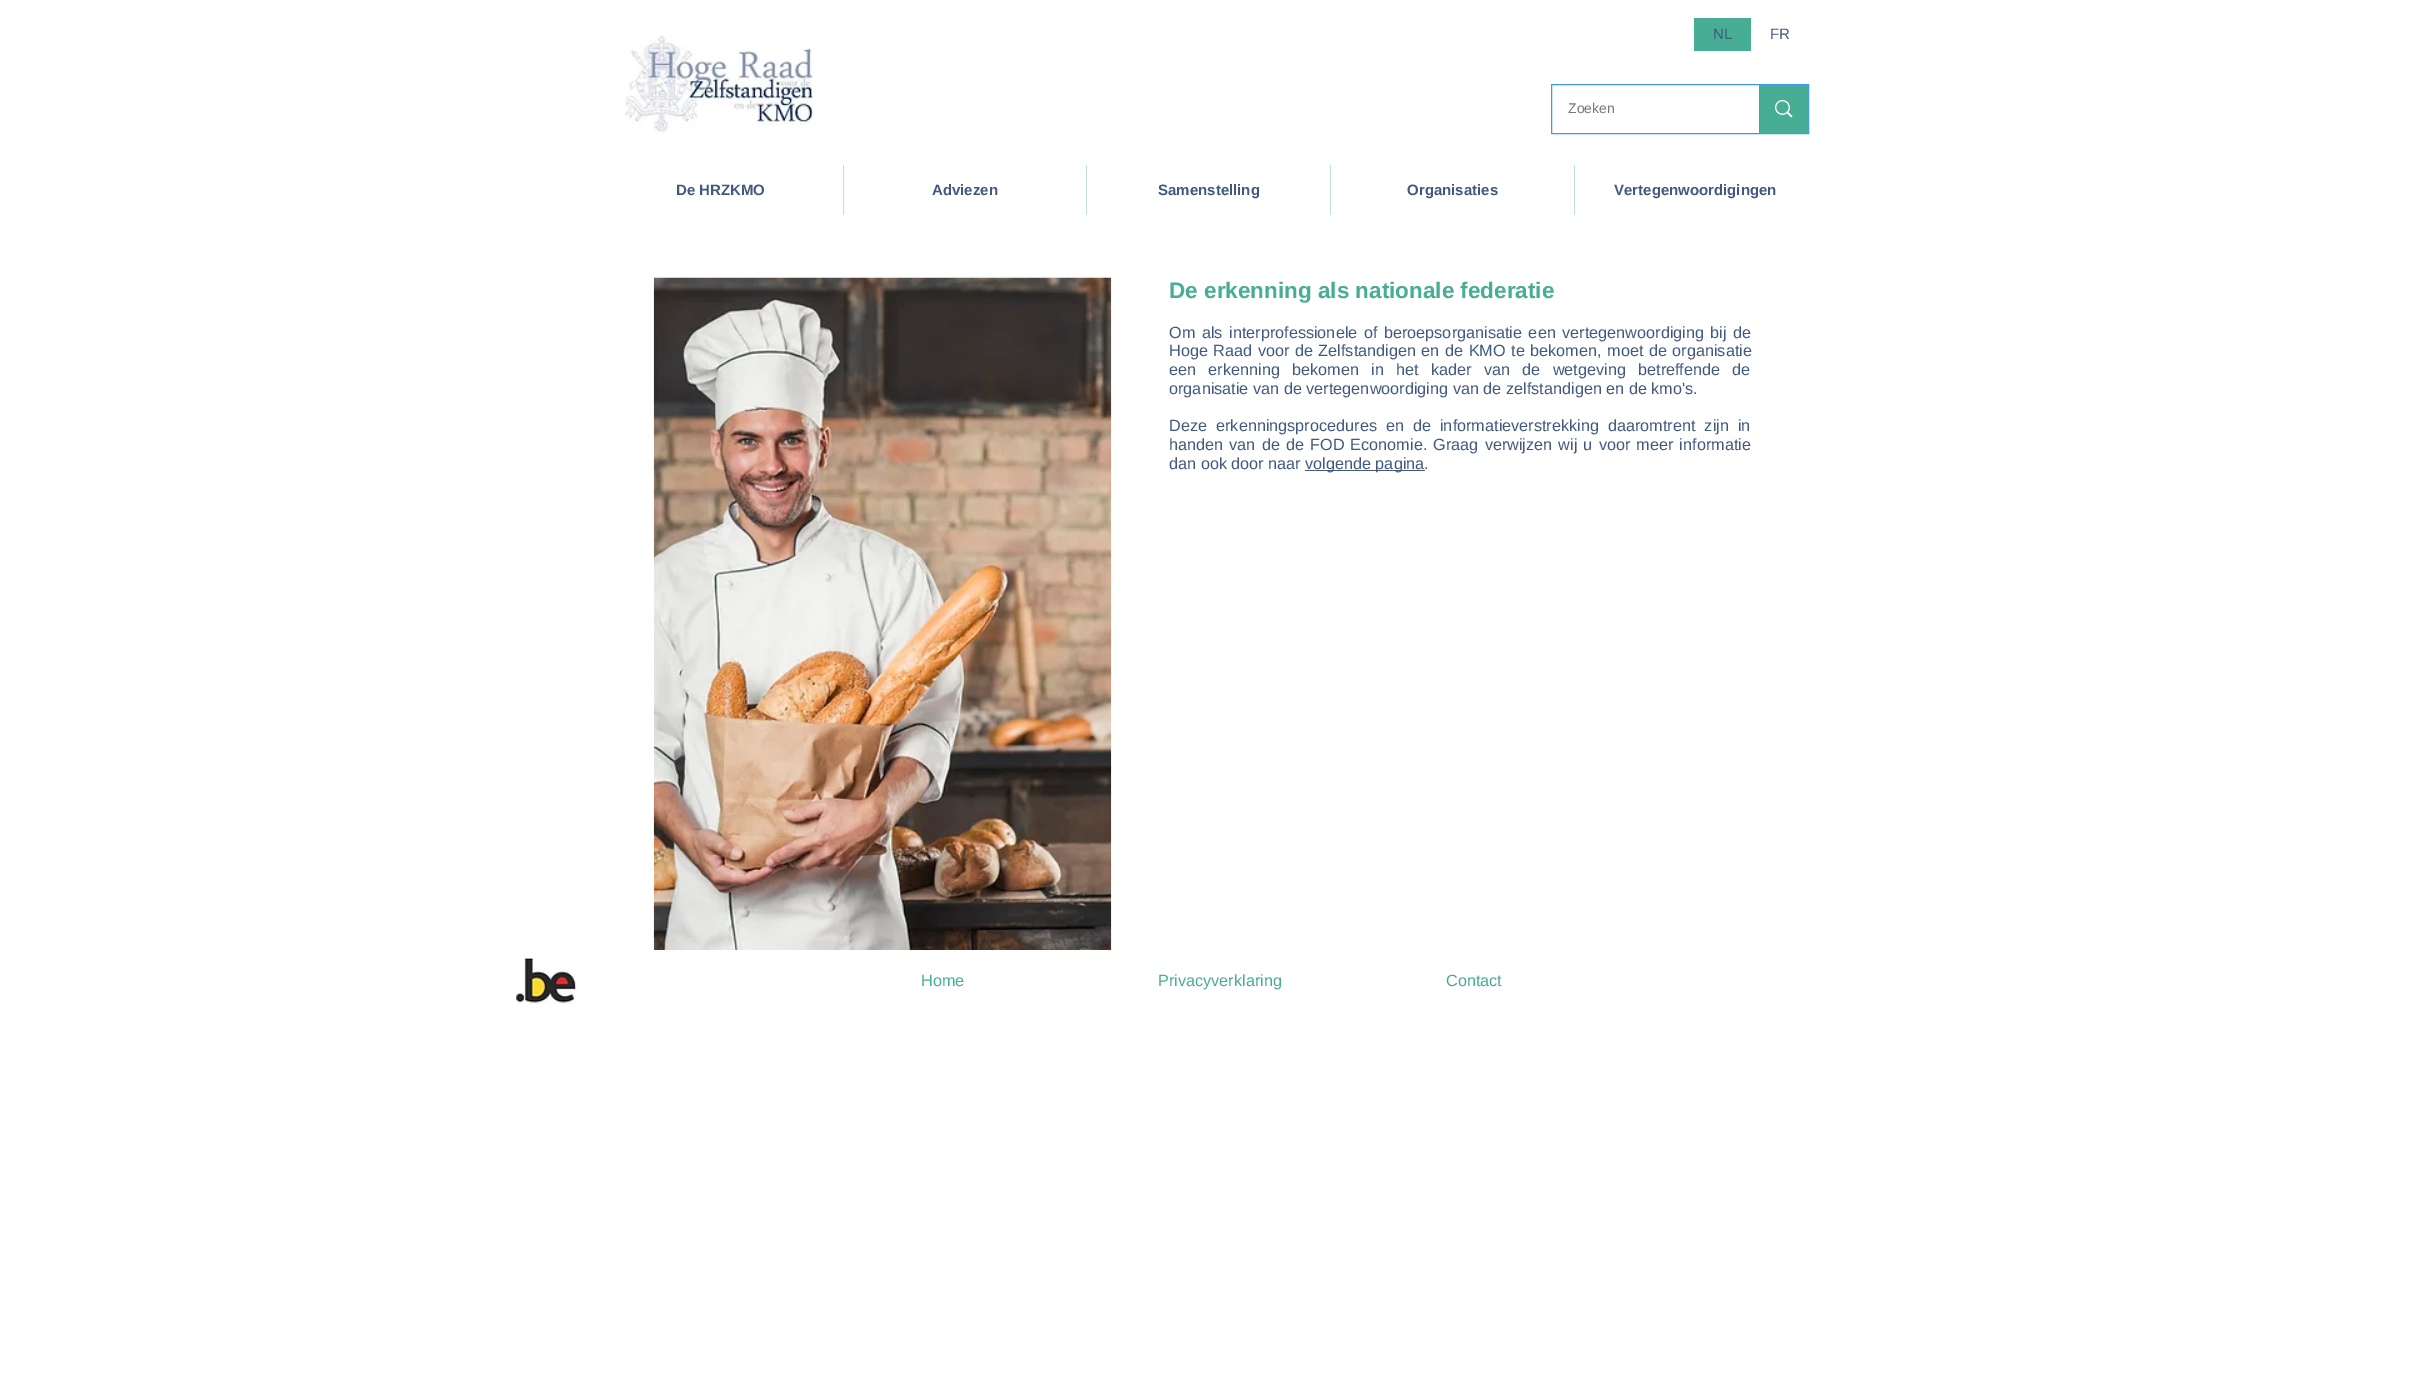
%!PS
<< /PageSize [2425 1382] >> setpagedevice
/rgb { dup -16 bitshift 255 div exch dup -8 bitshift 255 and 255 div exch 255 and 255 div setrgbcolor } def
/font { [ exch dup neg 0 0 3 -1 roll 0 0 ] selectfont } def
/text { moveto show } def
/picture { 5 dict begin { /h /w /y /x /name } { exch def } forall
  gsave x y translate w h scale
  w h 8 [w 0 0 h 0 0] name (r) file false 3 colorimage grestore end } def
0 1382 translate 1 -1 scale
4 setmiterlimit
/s1 { /LiberationSans-Regular 15 font 16#42597F rgb } def
/s2 { /LiberationSans-Bold 22.5 font 16#47AD94 rgb } def
/s3 { /LiberationSans-Regular 16.25 font 16#42597F rgb } def
/s4 { /LiberationSans-Regular 14 font 16#787878 rgb } def
/s5 { /LiberationSans-Bold 15 font 16#42597F rgb } def
/s6 { /LiberationSans-Regular 16.25 font 16#47AD94 rgb } def
16#FFFFFF rgb
0 0 2425 1382 rectfill
16#47AD94 rgb
1694 18 57 33 rectfill
s1
(NL) 1713 39 text
(FR) 1770 39 text
(pic1.raw) 653 277 459 673 picture
s2
(De erkenning als nationale federatie) 1169 298 text
/LiberationSans-Regular 16.25 font
16#42597F rgb
1169 338 moveto 2 0 32 (Om als interprofessionele of beroepsorganisatie een vertegenwoordiging bij de) widthshow
1169 356 moveto 1 0 32 (Hoge Raad voor de Zelfstandigen en de KMO te bekomen, moet de organisatie) widthshow
1169 375 moveto 7.75 0 32 (een erkenning bekomen in het kader van de wetgeving betreffende de) widthshow
(organisatie van de vertegenwoordiging van de zelfstandigen en de kmo's.) 1169 394 text
1169 431 moveto 4.5 0 32 (Deze erkenningsprocedures en de informatieverstrekking daaromtrent zijn in) widthshow
1169 450 moveto 1.6 0 32 (handen van de de FOD Economie. Graag verwijzen wij u voor meer informatie) widthshow
(dan ook door naar) 1169 469 text
1305 470 120 1 rectfill
(volgende pagina.) 1305 469 text
(pic2.raw) 623 35 190 98 picture
16#3D9BE9 rgb
1551.5 84.5 257 49 rectstroke
s4
(Zoeken) 1568 113 text
16#47AD94 rgb
1760 85 48 48 rectfill
16#3D9BE9 rgb
1759 85 1 48 rectfill
(pic3.raw) 1775 100 18 18 picture
s5
(De HRZKMO) 676 195 text
16#BFE2DA rgb
843 165 1 50 rectfill
s5
(Adviezen) 932 195 text
16#BFE2DA rgb
1086 165 1 50 rectfill
s5
(Samenstelling) 1158 195 text
16#BFE2DA rgb
1330 165 1 50 rectfill
s5
(Organisaties) 1407 195 text
16#BFE2DA rgb
1574 165 1 50 rectfill
s5
(Vertegenwoordigingen) 1614 195 text
(pic4.raw) 516 957 61 48 picture
s6
(Home) 921 986 text
(Privacyverklaring) 1158 986 text
(Contact) 1446 986 text
showpage
